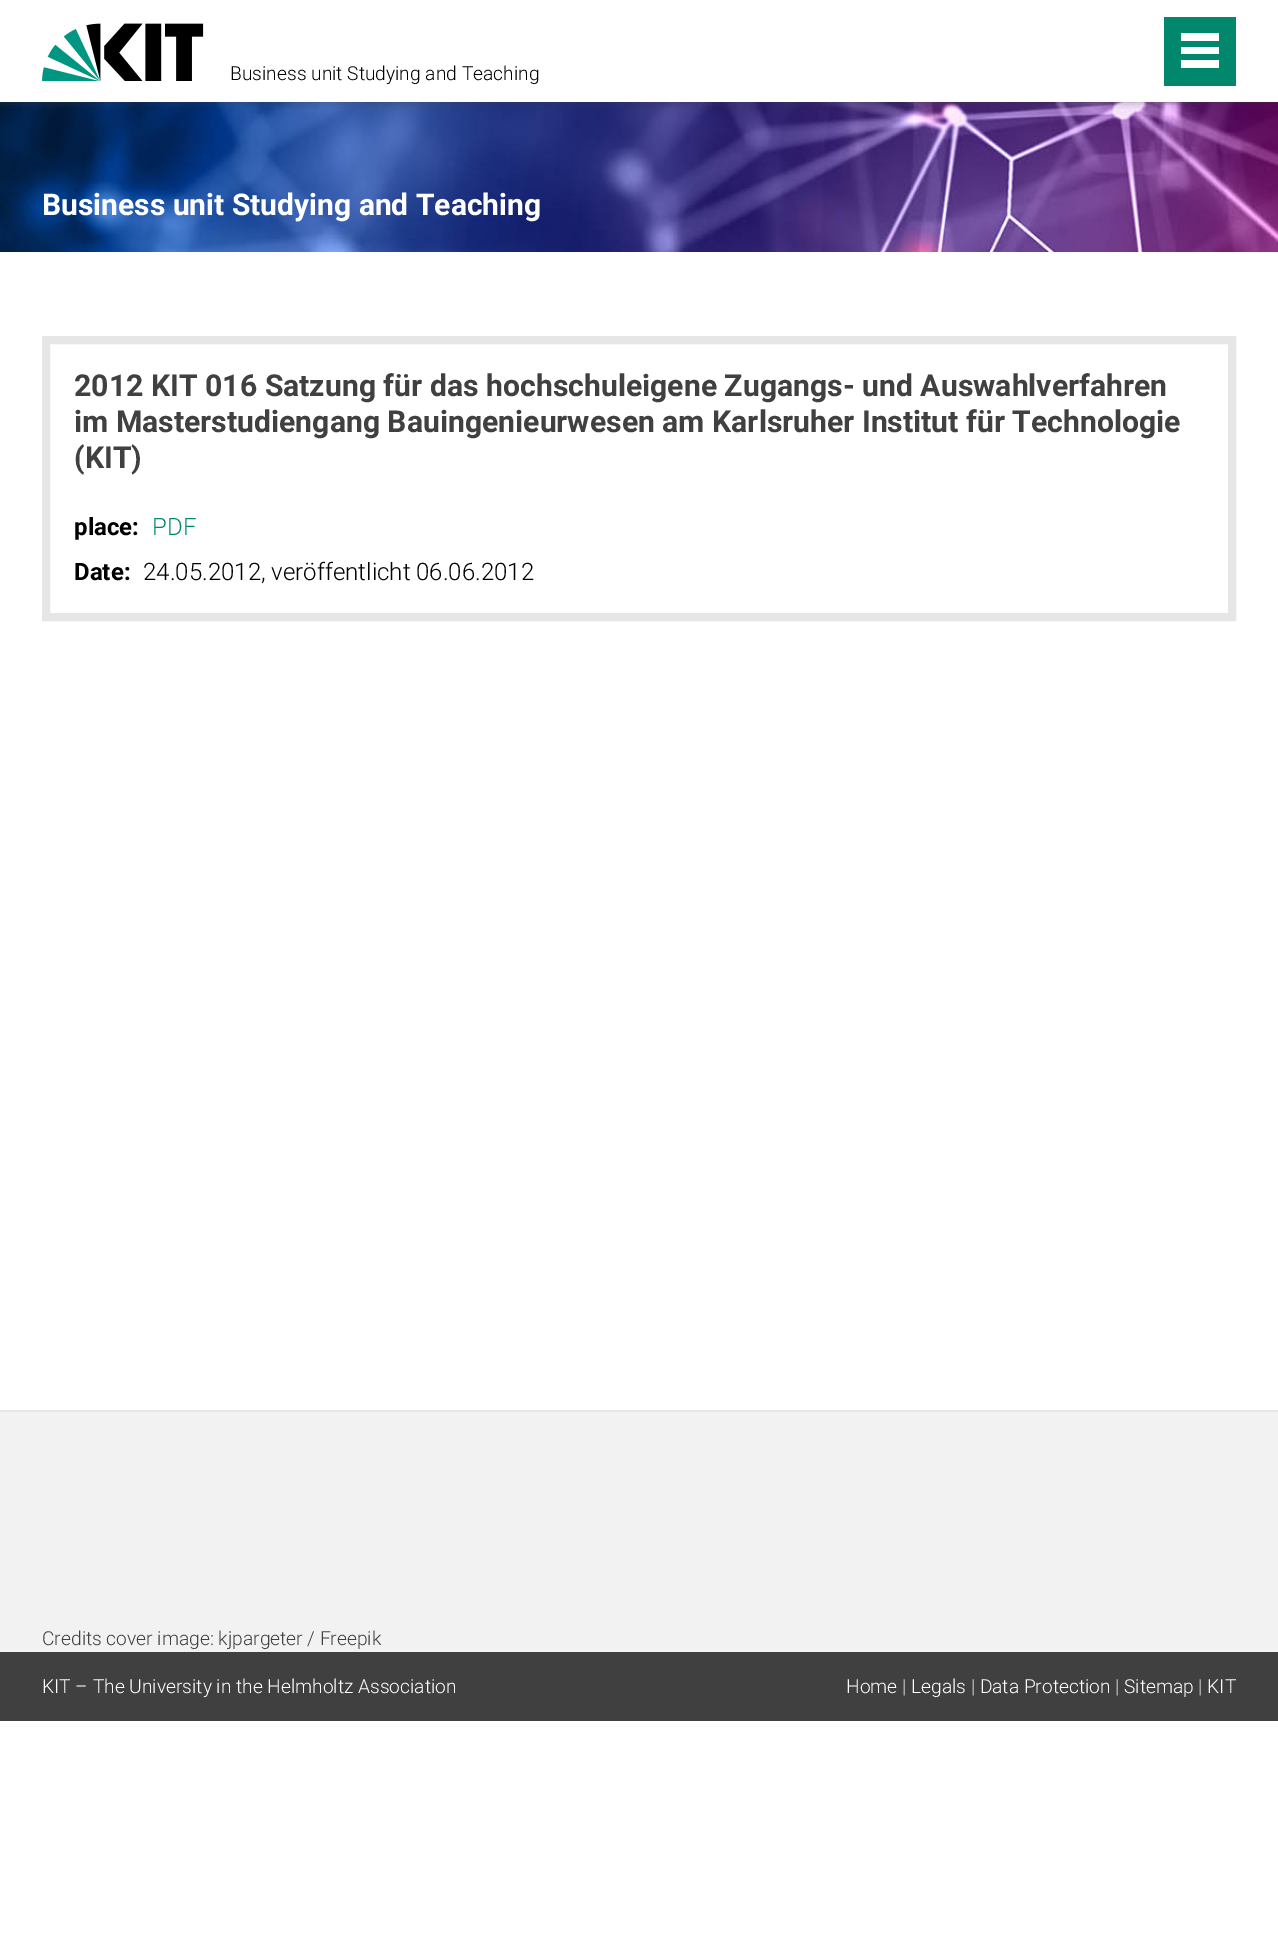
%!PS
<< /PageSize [1278 1940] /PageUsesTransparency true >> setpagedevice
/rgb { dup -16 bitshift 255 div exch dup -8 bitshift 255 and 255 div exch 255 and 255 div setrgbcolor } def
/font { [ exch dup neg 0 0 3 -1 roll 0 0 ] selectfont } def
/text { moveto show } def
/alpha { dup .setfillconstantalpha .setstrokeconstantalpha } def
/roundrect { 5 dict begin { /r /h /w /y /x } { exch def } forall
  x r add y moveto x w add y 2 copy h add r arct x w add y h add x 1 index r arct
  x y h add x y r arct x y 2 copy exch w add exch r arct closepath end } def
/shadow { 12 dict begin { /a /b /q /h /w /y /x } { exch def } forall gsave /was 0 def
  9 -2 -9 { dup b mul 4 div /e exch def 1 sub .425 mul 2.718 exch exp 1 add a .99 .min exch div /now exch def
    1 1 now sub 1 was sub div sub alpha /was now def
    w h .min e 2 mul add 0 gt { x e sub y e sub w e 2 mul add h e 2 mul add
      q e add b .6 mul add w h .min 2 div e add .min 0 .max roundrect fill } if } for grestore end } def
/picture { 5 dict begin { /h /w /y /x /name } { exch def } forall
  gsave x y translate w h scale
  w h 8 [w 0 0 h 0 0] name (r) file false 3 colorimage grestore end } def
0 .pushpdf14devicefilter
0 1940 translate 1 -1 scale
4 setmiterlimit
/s1 { /Roboto-Light 19.2 font 16#000000 rgb } def
/s2 { /Roboto-Bold 30 font 16#FFFFFF rgb } def
/s3 { /Roboto-Bold 30.2 font 16#404040 rgb } def
/s4 { /Roboto-Bold 24 font 16#000000 rgb } def
/s5 { /Roboto-Light 24 font 16#00876C rgb } def
/s6 { /Roboto-Light 24 font 16#000000 rgb } def
/s7 { /Roboto-Light 19.2 font 16#404040 rgb } def
/s8 { /Roboto-Light 19.2 font 16#FFFFFF rgb } def
16#FFFFFF rgb
0 0 1278 1940 rectfill
(pic2.raw) 0 102 1278 150 picture
gsave
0 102 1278 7 rectclip
16#404040 rgb
0 0 1278 102 0 4 0.5 shadow
grestore
(pic1.raw) 42 23 162 58 picture
s1
(Business unit Studying and Teaching) 230 80 text
16#00876C rgb
1164 17 72 69 rectfill
16#FFFFFF rgb
1181 60 38 8 rectfill
1181 47 38 7 rectfill
1181 33 38 8 rectfill
s2
(Business unit Studying and Teaching) 42 215 text
16#E6E6E6 rgb
8 setlinewidth
46 340 1186 277 rectstroke
s3
(2012 KIT 016 Satzung für das hochschuleigene Zugangs- und Auswahlverfahren) 74 396 text
(im Masterstudiengang Bauingenieurwesen am Karlsruher Institut für Technologie) 74 432 text
(\(KIT\)) 74 468 text
s4
(place:) 74 535 text
s5
(PDF) 152 535 text
s4
(Date:) 74 580 text
s6
(24.05.2012, veröffentlicht 06.06.2012) 143 580 text
16#F2F2F2 rgb
0 1412 1278 240 rectfill
16#E6E6E6 rgb
0 1410 1278 2 rectfill
s7
(Credits cover image: kjpargeter / Freepik) 42 1645 text
0 1652 1278 69 rectfill
s8
(KIT – The University in the Helmholtz Association) 42 1693 text
(Home | Legals | Data Protection | Sitemap | KIT) 846 1693 text
.poppdf14devicefilter showpage
